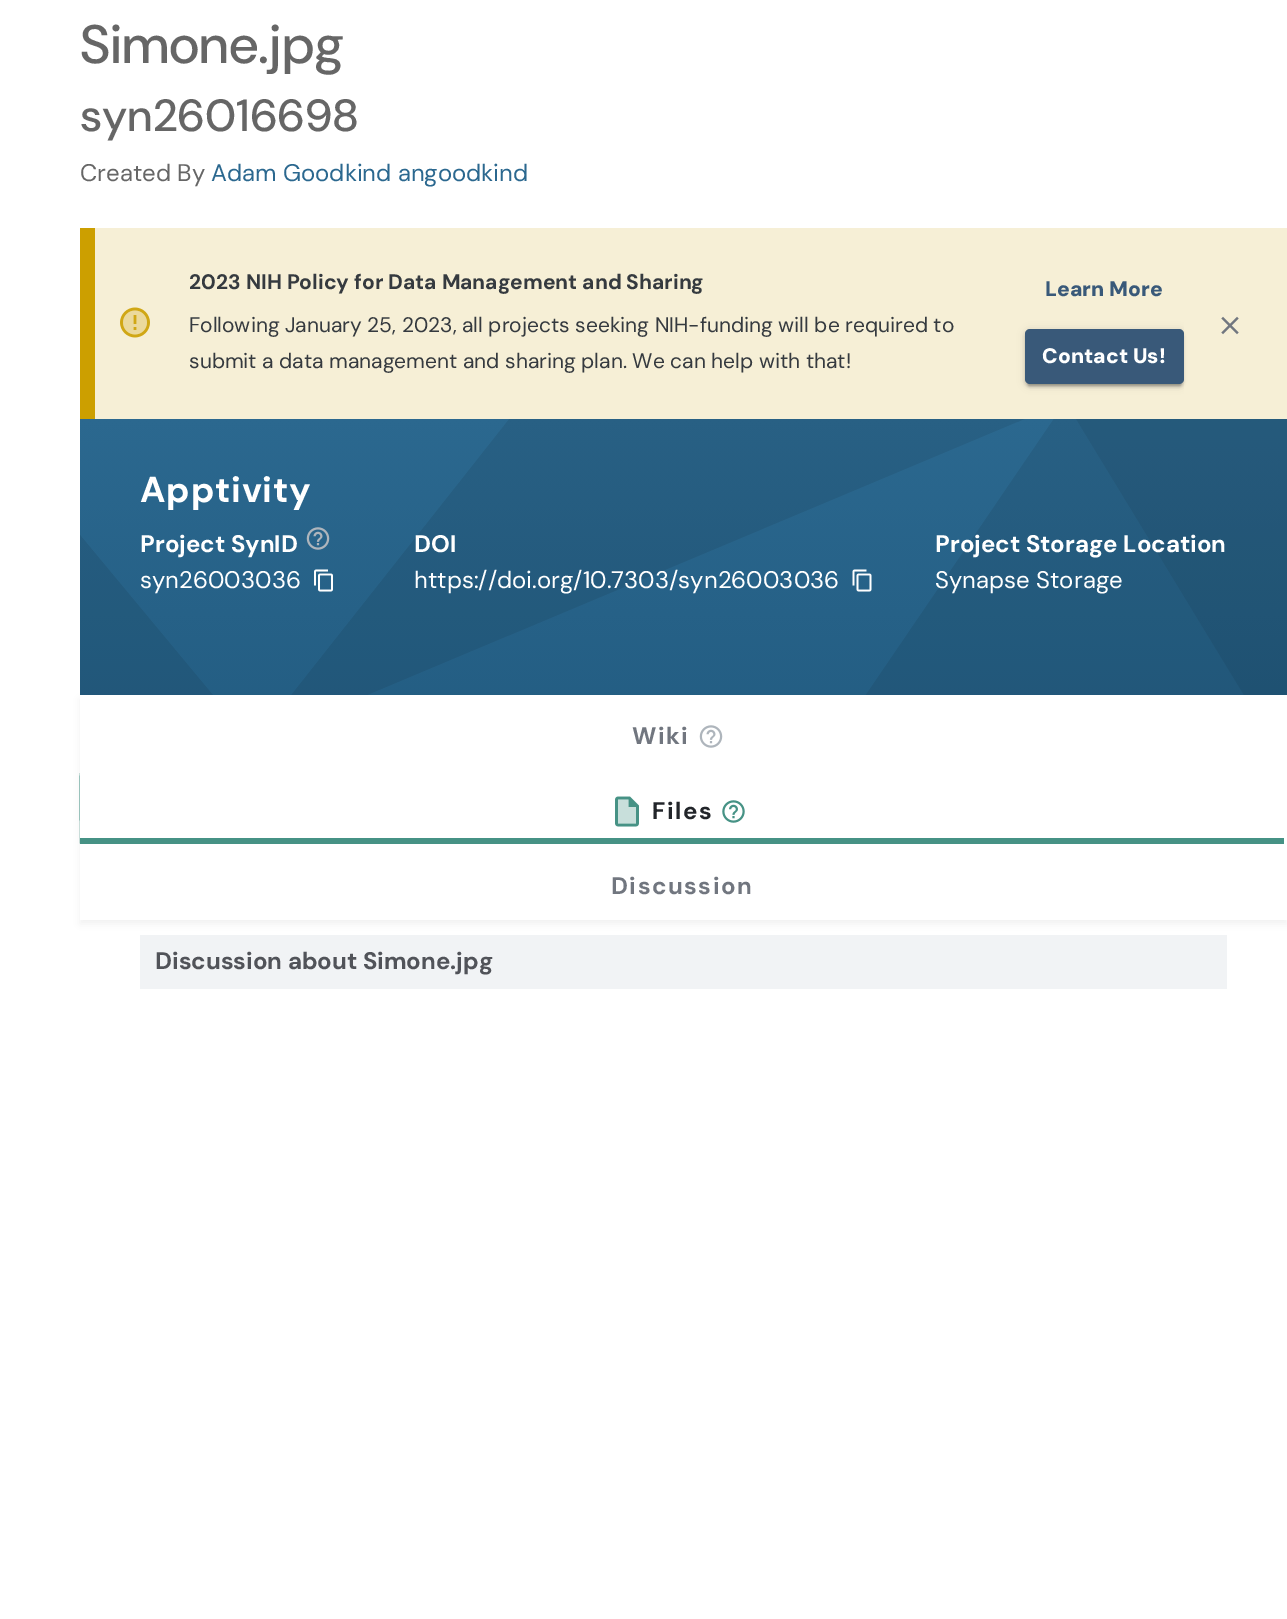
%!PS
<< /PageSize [1287 1619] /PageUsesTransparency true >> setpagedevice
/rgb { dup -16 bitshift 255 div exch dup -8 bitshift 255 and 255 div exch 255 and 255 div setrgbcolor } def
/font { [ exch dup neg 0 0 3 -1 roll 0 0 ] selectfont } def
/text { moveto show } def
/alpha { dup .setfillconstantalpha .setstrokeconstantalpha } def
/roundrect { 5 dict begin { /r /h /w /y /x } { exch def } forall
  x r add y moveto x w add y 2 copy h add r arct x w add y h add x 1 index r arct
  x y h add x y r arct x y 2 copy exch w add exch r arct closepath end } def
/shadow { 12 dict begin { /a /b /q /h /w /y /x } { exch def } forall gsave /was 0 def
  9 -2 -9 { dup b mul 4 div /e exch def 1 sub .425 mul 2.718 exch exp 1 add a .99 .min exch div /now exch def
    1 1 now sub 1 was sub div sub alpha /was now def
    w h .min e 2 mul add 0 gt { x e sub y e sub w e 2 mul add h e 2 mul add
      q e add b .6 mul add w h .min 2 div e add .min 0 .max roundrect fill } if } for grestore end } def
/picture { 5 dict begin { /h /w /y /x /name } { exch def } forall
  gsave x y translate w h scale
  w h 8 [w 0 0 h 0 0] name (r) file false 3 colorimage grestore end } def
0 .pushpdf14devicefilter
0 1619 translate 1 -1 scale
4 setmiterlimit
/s1 { /DMSans-Medium 54 font 16#666666 rgb } def
/s2 { /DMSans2-Medium 45 font 16#666666 rgb } def
/s3 { /DMSans-Regular 24 font 16#666666 rgb } def
/s4 { /DMSans-Regular 24 font 16#2B688F rgb } def
/s5 { /DMSans2-Bold 21 font 16#353A3F rgb } def
/s6 { /DMSans2-Regular 21 font 16#353A3F rgb } def
/s7 { /DMSans-Black 21 font 16#395979 rgb } def
/s8 { /DMSans-Black 21 font 16#FFFFFF rgb } def
/s9 { /DMSans-Bold 24 font 16#FFFFFF rgb } def
/s10 { /DMSans-Regular 24 font 16#FFFFFF rgb } def
/s11 { /DMSans-Bold 24 font 16#515359 rgb } def
16#FFFFFF rgb
0 0 1287 1619 rectfill
s1
(Simone.jpg) 80 63 text
s2
(syn26016698) 80 131 text
s3
(Created By) 80 181 text
s4
(Adam Goodkind angoodkind) 211 181 text
16#F6EFD6 rgb
95 228 1192 191 rectfill
16#CC9F00 rgb
80 228 15 191 rectfill
(pic1.raw) 120 307 30 31 picture
s5
(2023 NIH Policy for Data Management and Sharing) 189 289 text
s6
(Following January 25, 2023, all projects seeking NIH-funding will be required to) 189 332 text
(submit a data management and sharing plan. We can help with that!) 189 368 text
s7
(Learn More) 1045 296 text
gsave
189 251 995 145 rectclip
16#000000 rgb
1025 330 159 56 5 4 0.12 shadow
grestore
16#000000 rgb
1025 332 159 55 5 1.5 0.14 shadow
1028 336 153 50 1.5 1 0.2 shadow
16#395979 rgb
1025 329 159 55 5 roundrect fill
s8
(Contact Us!) 1042 363 text
(pic2.raw) 1221 316 18 19 picture
(pic3.raw) 80 419 1207 276 picture
/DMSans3-Bold 36 font
140 502 moveto 0.75 0 (Apptivity) ashow
s9
(Project SynID) 140 552 text
(pic4.raw) 306 527 24 23 picture
s10
(syn26003036) 140 588 text
(pic5.raw) 314 569 19 23 picture
s9
(DOI) 414 552 text
s10
(https://doi.org/10.7303/syn26003036) 414 588 text
(pic6.raw) 852 569 20 23 picture
s9
(Project Storage Location) 935 552 text
s10
(Synapse Storage) 935 588 text
16#F1F3F5 rgb
140 935 1087 54 rectfill
gsave
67 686 moveto 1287 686 lineto 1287 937 lineto 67 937 lineto closepath 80 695 moveto 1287 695 lineto 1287 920 lineto 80 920 lineto closepath eoclip newpath
16#000000 rgb
80 699 1207 225 0 4 0.05 shadow
grestore
/DMSans-Bold 24 font
16#71767F rgb
632 744 moveto 1.5 0 (Wiki) ashow
(pic7.raw) 699 725 24 23 picture
16#469285 rgb
80 773 moveto 79 775 80 837 80 844 curveto 1284 844 lineto 1284 838 lineto 80 838 lineto closepath fill
(pic8.raw) 615 796 24 31 picture
16#22252A rgb
652 819 moveto 1.5 0 (Files) ashow
(pic9.raw) 722 800 23 23 picture
16#71767F rgb
611 894 moveto 1.5 0 (Discussion) ashow
s11
(Discussion about Simone.jpg) 155 969 text
.poppdf14devicefilter showpage
